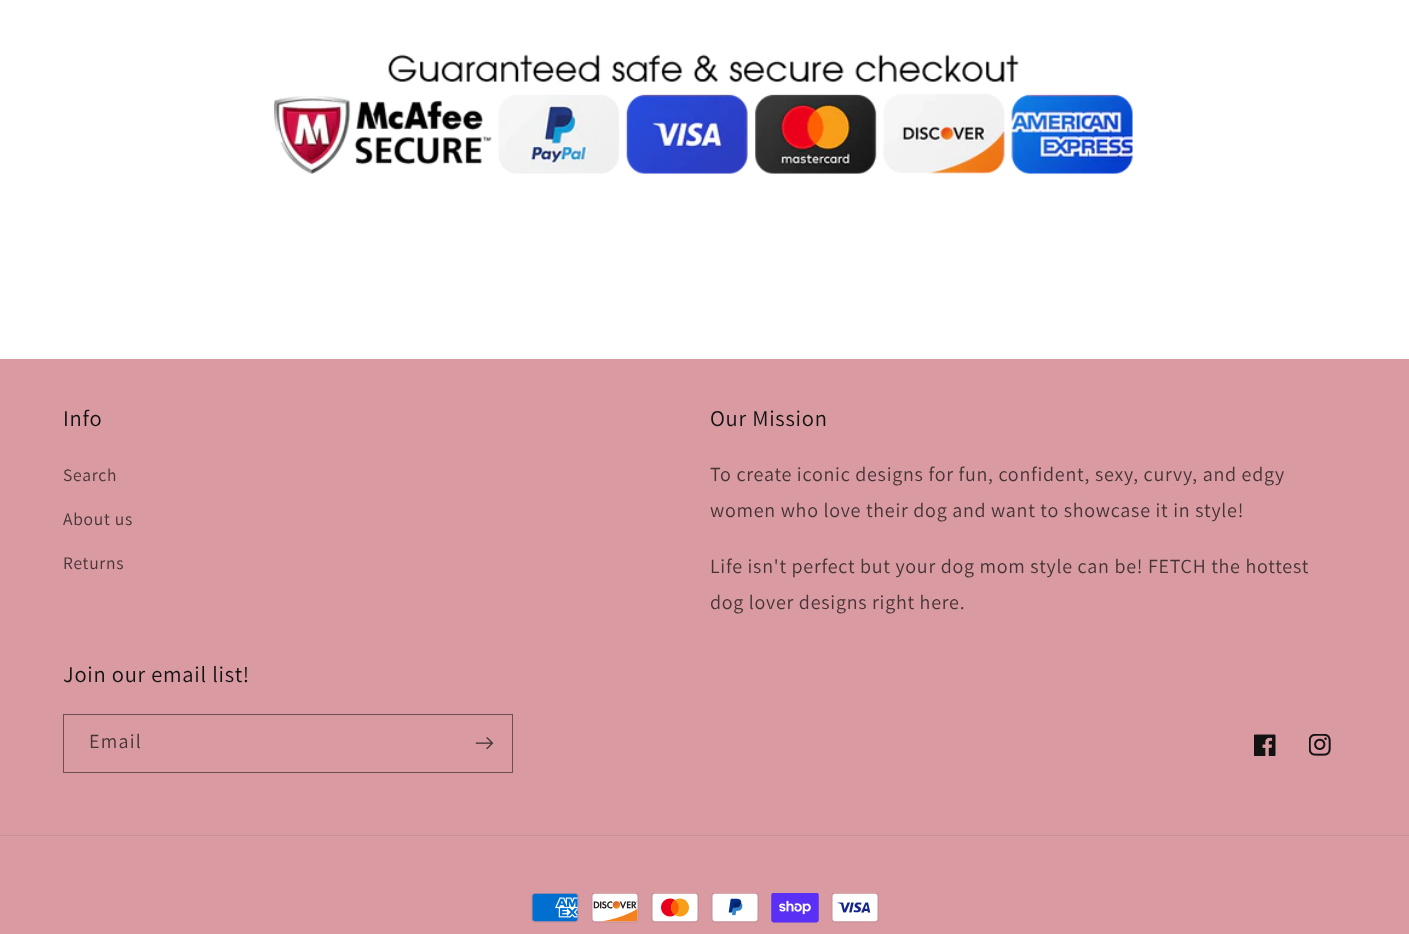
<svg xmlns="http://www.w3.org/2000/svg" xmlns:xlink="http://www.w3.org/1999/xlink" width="1409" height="934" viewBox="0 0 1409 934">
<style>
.cls-1{font:22.5px Assistant;letter-spacing:0.75px;fill:#121212}
.cls-2{font:17.5px Assistant;letter-spacing:0.75px;fill:#443436}
.cls-3{font:20px Assistant;letter-spacing:0.75px;fill:#443436}
.cls-4{font:20px Assistant;letter-spacing:1.25px;fill:#443436}
</style>
<rect width="100%" height="100%" fill="#ffffff"/>
<image xlink:href="image0.png" x="273" y="54" width="860" height="120"/>
<rect fill="#d99aa2" x="0" y="359" width="1409" height="575"/>
<rect fill="none" stroke="#6c4f53" x="63.5" y="714.5" width="449" height="58"/>
<image xlink:href="image1.png" x="475" y="737" width="18" height="13"/>
<image xlink:href="image2.png" x="1254" y="734" width="22" height="22"/>
<image xlink:href="image3.png" x="1309" y="734" width="22" height="22"/>
<rect fill="#c98f96" x="0" y="835" width="1409" height="1"/>
<image xlink:href="image4.png" x="531" y="893" width="48" height="30"/>
<image xlink:href="image5.png" x="591" y="893" width="48" height="30"/>
<image xlink:href="image6.png" x="651" y="893" width="48" height="30"/>
<image xlink:href="image7.png" x="711" y="893" width="48" height="30"/>
<image xlink:href="image8.png" x="771" y="893" width="48" height="30"/>
<image xlink:href="image9.png" x="831" y="893" width="48" height="30"/>
<text class="cls-1" x="63" y="426">Info</text>
<text class="cls-2" x="63" y="481">Search</text>
<text class="cls-2" x="63" y="525">About us</text>
<text class="cls-2" x="63" y="569">Returns</text>
<text class="cls-1" x="710" y="426">Our Mission</text>
<text class="cls-3"><tspan x="710" y="481">To create iconic designs for fun, confident, sexy, curvy, and edgy</tspan><tspan x="710" y="517">women who love their dog and want to showcase it in style!</tspan></text>
<text class="cls-3"><tspan x="710" y="573">Life isn't perfect but your dog mom style can be! FETCH the hottest</tspan><tspan x="710" y="609">dog lover designs right here.</tspan></text>
<text class="cls-1" x="63" y="682">Join our email list!</text>
<text class="cls-4" x="89" y="748">Email</text>
</svg>
